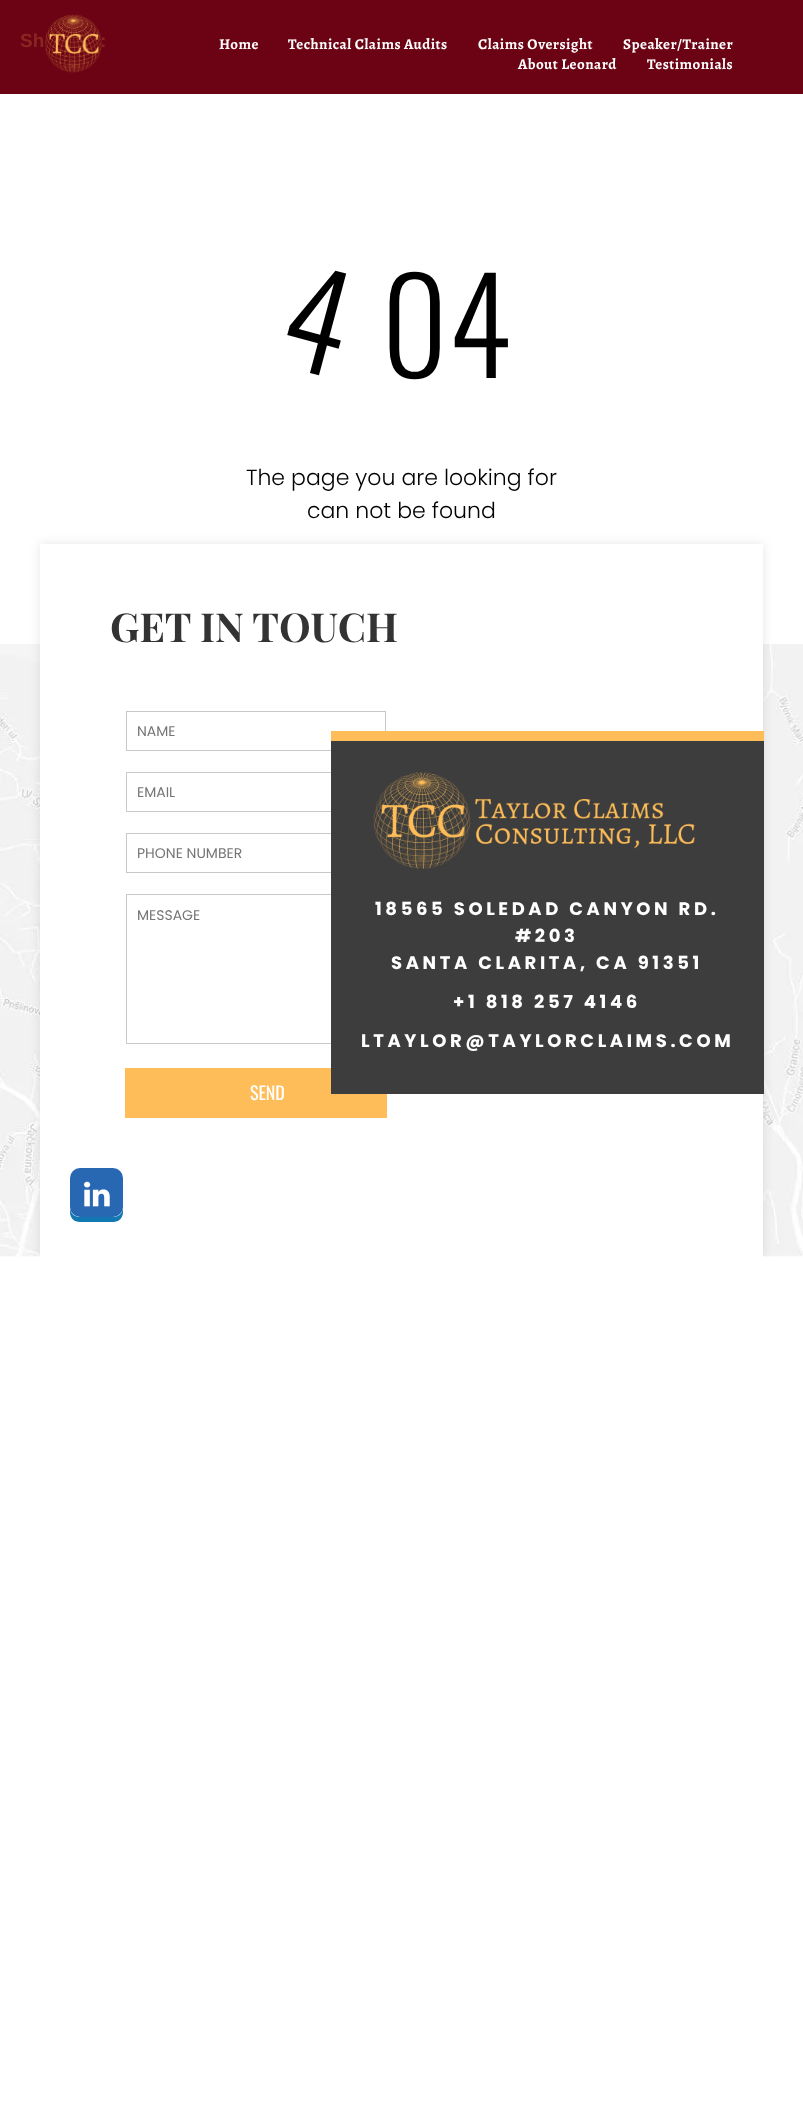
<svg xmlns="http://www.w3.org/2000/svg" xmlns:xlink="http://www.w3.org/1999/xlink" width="803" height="2119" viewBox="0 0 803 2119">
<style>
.cls-1{font:bold 19px Liberation Sans;fill:#882621}
.cls-2{font:bold 15px Alegreya;letter-spacing:0.45px;fill:#ffffff}
.cls-3{font:300 130px Oswald;fill:#000000}
.cls-4{font:300 22px Poppins;fill:#000000}
.cls-5{font:bold 40px Playfair Display;fill:#333333}
.cls-6{font:14px Poppins;fill:#757575}
.cls-7{font:18px Oswald;fill:#ffffff}
.cls-8{font:bold 18px Poppins;letter-spacing:3.6px;fill:#ffffff}
</style>
<defs>
<clipPath id="clip1"><rect x="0" y="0" width="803" height="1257"/></clipPath>
</defs>
<rect width="100%" height="100%" fill="#ffffff"/>
<rect fill="#6c0314" x="0" y="0" width="803" height="94"/>
<image xlink:href="image0.png" x="44" y="14" width="58" height="59"/>
<image xlink:href="image1.png" x="0" y="644" width="803" height="613"/>
<g clip-path="url(#clip1)">
<rect fill="#000000" fill-opacity="0.1" filter="blur(5.5px)" x="40" y="544" width="723" height="713"/>
</g>
<rect fill="#ffffff" x="40" y="544" width="723" height="713"/>
<rect fill="none" stroke="#c9c9c9" x="126.5" y="711.5" width="259" height="39"/>
<rect fill="none" stroke="#c9c9c9" x="126.5" y="772.5" width="259" height="39"/>
<rect fill="none" stroke="#c9c9c9" x="126.5" y="833.5" width="259" height="39"/>
<rect fill="none" stroke="#c9c9c9" x="126.5" y="894.5" width="259" height="149"/>
<rect fill="#ffbd59" x="125" y="1068" width="262" height="50"/>
<rect fill="#3d3d3d" x="331" y="741" width="433" height="353"/>
<rect fill="#ffbd59" x="331" y="731" width="433" height="10"/>
<image xlink:href="image2.png" x="373" y="772" width="322" height="97"/>
<path fill="#1278b1" d="M70 1207V1212C70 1218 74 1222 80 1222H113C119 1222 123 1218 123 1212V1207C123 1213 119 1217 113 1217H80C74 1217 70 1213 70 1207Z"/>
<rect fill="#2867b2" x="70" y="1168" width="53" height="49" rx="10"/>
<image xlink:href="image3.png" x="84" y="1181" width="26" height="26"/>
<text class="cls-1" x="20" y="47">Sh</text>
<text class="cls-1" x="100" y="47">:</text>
<text class="cls-2" x="219" y="49">Home</text>
<text class="cls-2" x="288" y="49">Technical Claims Audits</text>
<text class="cls-2" x="478" y="49">Claims Oversight</text>
<text class="cls-2" x="623" y="49">Speaker/Trainer</text>
<text class="cls-2" x="518" y="69">About Leonard</text>
<text class="cls-2" x="647" y="69">Testimonials</text>
<text class="cls-3" x="273" y="363" transform="rotate(15 273 363)">4</text>
<text class="cls-3" x="381" y="378">04</text>
<text class="cls-4" x="246" y="485">The page you are looking for</text>
<text class="cls-4" x="307" y="518">can not be found</text>
<text class="cls-5" x="110" y="642">GET IN TOUCH</text>
<text class="cls-6" x="137" y="736">NAME</text>
<text class="cls-6" x="137" y="797">EMAIL</text>
<text class="cls-6" x="137" y="858">PHONE NUMBER</text>
<text class="cls-6" x="137" y="920">MESSAGE</text>
<text class="cls-7" x="250" y="1100">SEND</text>
<text class="cls-8" x="375" y="915">18565 SOLEDAD CANYON RD.</text>
<text class="cls-8" x="515" y="942">#203</text>
<text class="cls-8" x="391" y="969">SANTA CLARITA, CA 91351</text>
<text class="cls-8" x="453" y="1008">+1 818 257 4146</text>
<text class="cls-8" x="361" y="1047">LTAYLOR@TAYLORCLAIMS.COM</text>
</svg>
